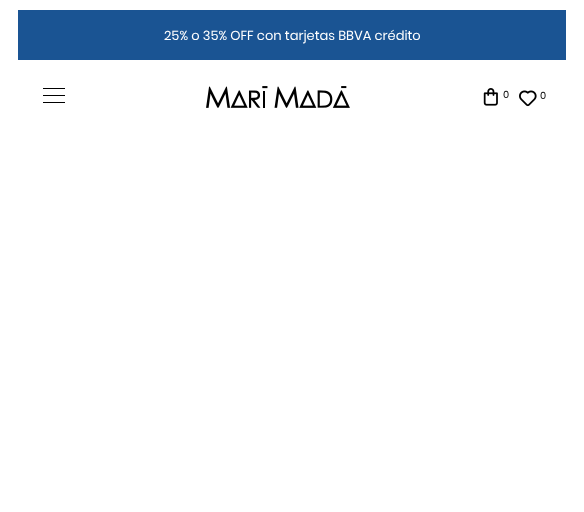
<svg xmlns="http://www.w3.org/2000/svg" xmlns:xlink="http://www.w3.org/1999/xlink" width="584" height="512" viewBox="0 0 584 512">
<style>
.cls-1{font:13px Poppins;fill:#ffffff}
.cls-2{font:10px Poppins;fill:#000000}
</style>
<rect width="100%" height="100%" fill="#ffffff"/>
<rect fill="#000000" x="43" y="88" width="22" height="1"/>
<rect fill="#000000" x="43" y="95" width="22" height="1"/>
<rect fill="#000000" x="43" y="102" width="22" height="1"/>
<rect fill="#1a5493" x="18" y="10" width="548" height="50"/>
<image xlink:href="image0.png" x="206" y="86" width="144" height="22"/>
<image xlink:href="image1.png" x="483" y="88" width="15" height="18"/>
<image xlink:href="image2.png" x="519" y="90" width="18" height="17"/>
<text class="cls-1" x="164" y="40">25% o 35% OFF con tarjetas BBVA crédito</text>
<text class="cls-2" x="503" y="98">0</text>
<text class="cls-2" x="540" y="99">0</text>
</svg>
